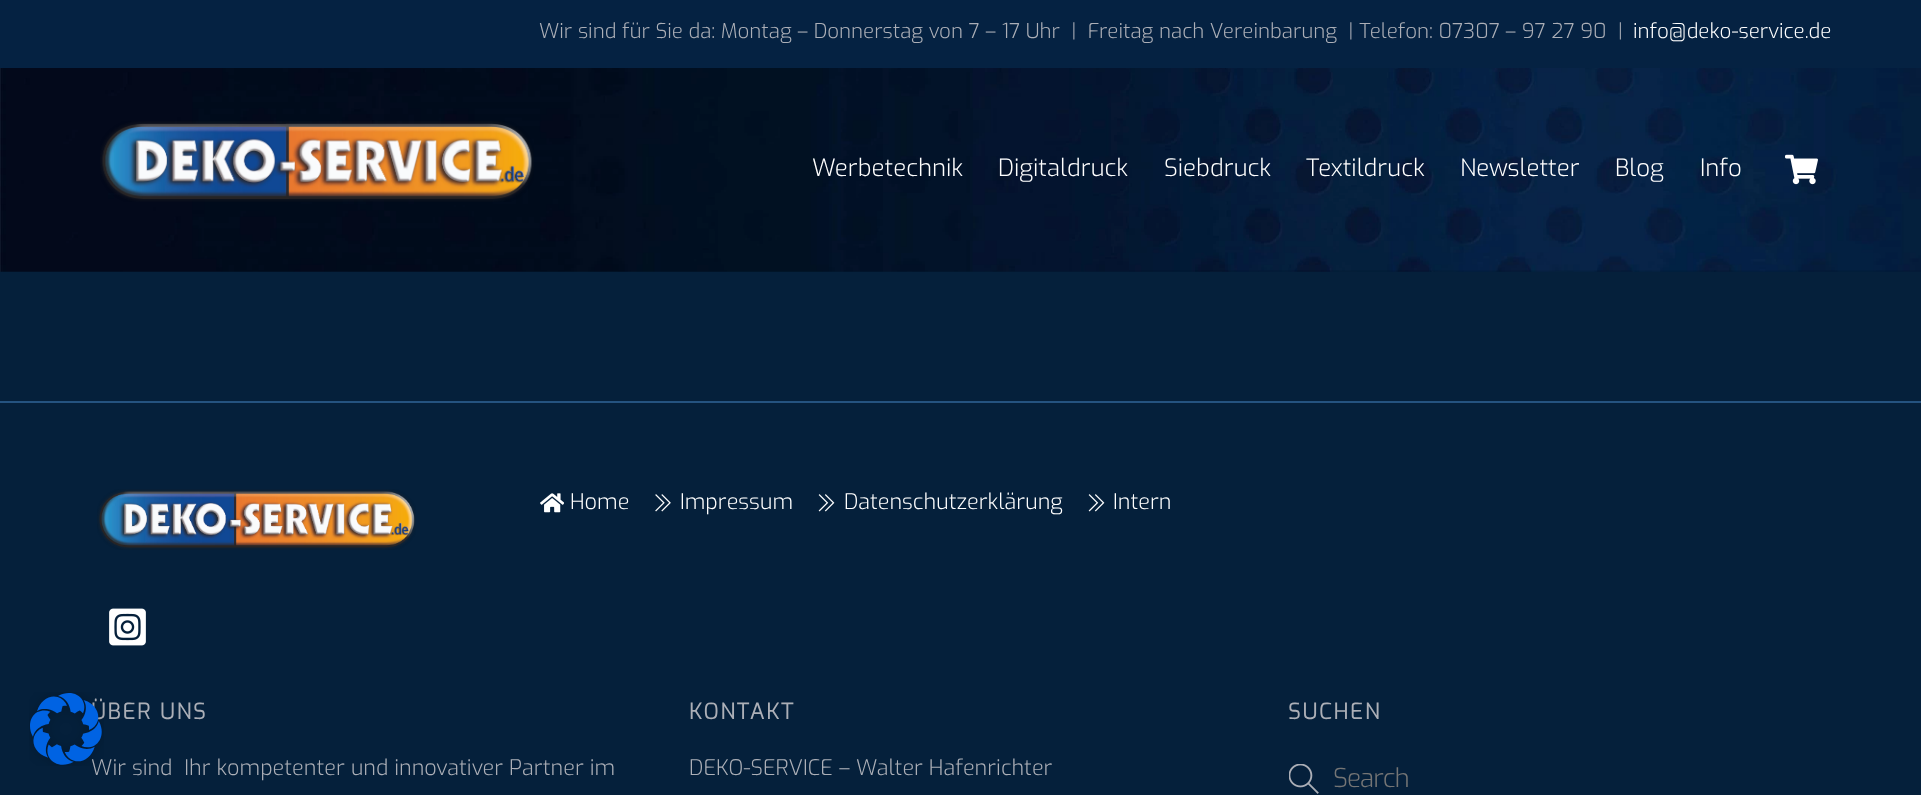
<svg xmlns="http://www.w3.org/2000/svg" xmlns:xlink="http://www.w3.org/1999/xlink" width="1921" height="795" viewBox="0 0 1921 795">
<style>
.cls-1{font:300 20.52px Exo;fill:#acafb7}
.cls-2{font:300 20.52px Exo;fill:#ffffff}
.cls-3{font:300 24px Exo;fill:#ffffff}
.cls-4{font:300 21.6px Exo;fill:#ffffff}
.cls-5{font:bold 21.6px Exo;letter-spacing:2px;fill:#acafb7}
.cls-6{font:300 21.6px Exo;fill:#acafb7}
.cls-7{font:300 26px Exo;letter-spacing:-1px;fill:#757575}
</style>
<rect width="100%" height="100%" fill="#05203b"/>
<image xlink:href="image1.png" x="0" y="68" width="1921" height="204"/>
<rect fill="#000000" fill-opacity="0.05" x="1129" y="270" width="792" height="2"/>
<rect fill="#052242" x="0" y="0" width="1921" height="68"/>
<image xlink:href="image2.png" x="100" y="121" width="434" height="81"/>
<image xlink:href="image3.png" x="1785" y="154" width="33" height="31"/>
<rect fill="#255380" x="0" y="401" width="1921" height="2"/>
<image xlink:href="image4.png" x="97" y="489" width="319" height="61"/>
<image xlink:href="image5.png" x="109" y="608" width="37" height="38"/>
<image xlink:href="image6.png" x="540" y="493" width="24" height="20"/>
<image xlink:href="image7.png" x="655" y="494" width="16" height="18"/>
<image xlink:href="image8.png" x="818" y="494" width="17" height="18"/>
<image xlink:href="image8.png" x="1088" y="494" width="17" height="18"/>
<image xlink:href="image9.png" x="1289" y="764" width="30" height="30"/>
<text class="cls-1" xml:space="preserve" x="539" y="38">Wir sind für Sie da: Montag – Donnerstag von 7 – 17 Uhr  |  Freitag nach Vereinbarung  | Telefon: 07307 – 97 27 90  |</text>
<text class="cls-2" x="1633" y="38">info@deko-service.de</text>
<text class="cls-3" x="812" y="176">Werbetechnik</text>
<text class="cls-3" x="998" y="176">Digitaldruck</text>
<text class="cls-3" x="1164" y="176">Siebdruck</text>
<text class="cls-3" x="1306" y="176">Textildruck</text>
<text class="cls-3" x="1460" y="176">Newsletter</text>
<text class="cls-3" x="1615" y="176">Blog</text>
<text class="cls-3" x="1700" y="176">Info</text>
<text class="cls-4" x="570" y="509">Home</text>
<text class="cls-4" x="680" y="509">Impressum</text>
<text class="cls-4" x="844" y="509">Datenschutzerklärung</text>
<text class="cls-4" x="1113" y="509">Intern</text>
<text class="cls-5" x="91" y="719">ÜBER UNS</text>
<text class="cls-6" xml:space="preserve" x="91" y="775">Wir sind  Ihr kompetenter und innovativer Partner im</text>
<image xlink:href="image0.png" x="29" y="692" width="75" height="74"/>
<text class="cls-5" x="689" y="719">KONTAKT</text>
<text class="cls-6" x="689" y="775">DEKO-SERVICE – Walter Hafenrichter</text>
<text class="cls-5" x="1288" y="719">SUCHEN</text>
<text class="cls-7" x="1333" y="787">Search</text>
</svg>
